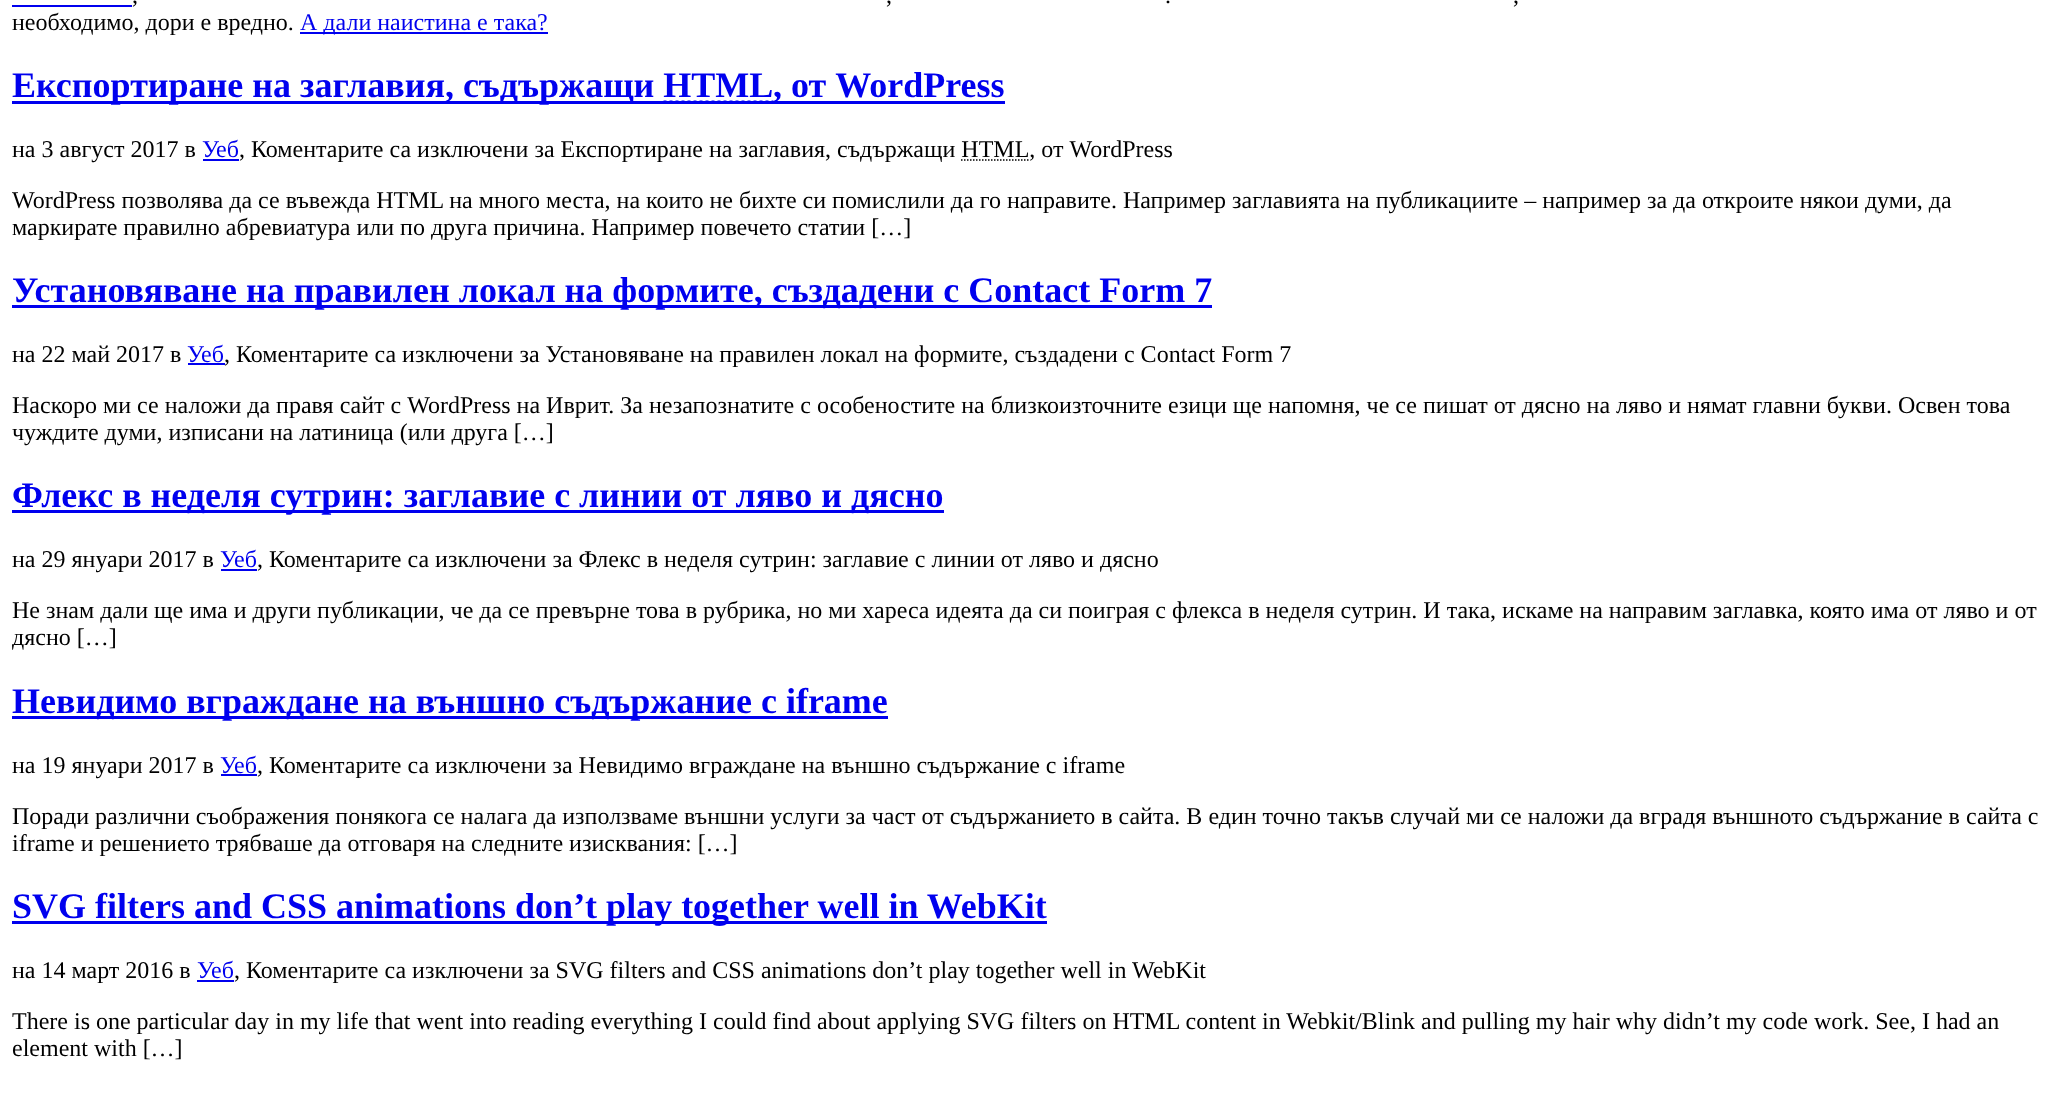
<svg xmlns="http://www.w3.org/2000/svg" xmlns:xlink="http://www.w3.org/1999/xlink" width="2066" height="1094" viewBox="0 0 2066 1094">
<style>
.cls-1{font:24px Liberation Serif;fill:#000000}
.cls-2{font:24px Liberation Serif;fill:#0000ee}
.cls-3{font:bold 36px Liberation Serif;fill:#0000ee}
</style>
<rect width="100%" height="100%" fill="#ffffff"/>
<rect fill="#0000ee" x="12" y="5" width="120" height="2"/>
<rect fill="#0000ee" x="300" y="32" width="248" height="2"/>
<rect fill="#0000ee" x="12" y="101" width="651" height="3"/>
<path fill="none" stroke="#0000ee" stroke-width="3" stroke-dasharray="3 3" d="M663.5 102H773.5"/>
<rect fill="#0000ee" x="663" y="101" width="342" height="3"/>
<rect fill="#0000ee" x="203" y="159" width="36" height="2"/>
<path fill="none" stroke="#000000" stroke-width="1.5" stroke-dasharray="1.5 1.5" d="M961 160H1029"/>
<rect fill="#0000ee" x="12" y="305" width="1200" height="3"/>
<rect fill="#0000ee" x="188" y="363" width="37" height="2"/>
<rect fill="#0000ee" x="12" y="510" width="932" height="3"/>
<rect fill="#0000ee" x="221" y="569" width="36" height="2"/>
<rect fill="#0000ee" x="12" y="716" width="876" height="3"/>
<rect fill="#0000ee" x="221" y="774" width="36" height="2"/>
<rect fill="#0000ee" x="12" y="921" width="1035" height="3"/>
<rect fill="#0000ee" x="197" y="980" width="37" height="2"/>
<text class="cls-1" x="132" y="3">,</text>
<text class="cls-1" x="886" y="3">,</text>
<text class="cls-1" x="1165" y="3">.</text>
<text class="cls-1" x="1513" y="3">,</text>
<text class="cls-1" x="12" y="30">необходимо, дори е вредно.</text>
<text class="cls-2" x="300" y="30">А дали наистина е така?</text>
<text class="cls-3" x="12" y="97">Експортиране на заглавия, съдържащи HTML</text>
<text class="cls-3" x="773" y="97">, от WordPress</text>
<text class="cls-1" x="12" y="157">на 3 август 2017 в</text>
<text class="cls-2" x="202" y="157">Уеб</text>
<text class="cls-1" x="239" y="157">, Коментарите са изключени за Експортиране на заглавия, съдържащи HTML, от WordPress</text>
<text class="cls-1"><tspan x="12" y="208">WordPress позволява да се въвежда HTML на много места, на които не бихте си помислили да го направите. Например заглавията на публикациите – например за да откроите някои думи, да</tspan><tspan x="12" y="235">маркирате правилно абревиатура или по друга причина. Например повечето статии […]</tspan></text>
<text class="cls-3" x="12" y="302">Установяване на правилен локал на формите, създадени с Contact Form 7</text>
<text class="cls-1" x="12" y="362">на 22 май 2017 в</text>
<text class="cls-2" x="187" y="362">Уеб</text>
<text class="cls-1" x="224" y="362">, Коментарите са изключени за Установяване на правилен локал на формите, създадени с Contact Form 7</text>
<text class="cls-1"><tspan x="12" y="413">Наскоро ми се наложи да правя сайт с WordPress на Иврит. За незапознатите с особеностите на близкоизточните езици ще напомня, че се пишат от дясно на ляво и нямат главни букви. Освен това</tspan><tspan x="12" y="440">чуждите думи, изписани на латиница (или друга […]</tspan></text>
<text class="cls-3" x="12" y="507">Флекс в неделя сутрин: заглавие с линии от ляво и дясно</text>
<text class="cls-1" x="12" y="567">на 29 януари 2017 в</text>
<text class="cls-2" x="220" y="567">Уеб</text>
<text class="cls-1" x="257" y="567">, Коментарите са изключени за Флекс в неделя сутрин: заглавие с линии от ляво и дясно</text>
<text class="cls-1"><tspan x="12" y="618">Не знам дали ще има и други публикации, че да се превърне това в рубрика, но ми хареса идеята да си поиграя с флекса в неделя сутрин. И така, искаме на направим заглавка, която има от ляво и от</tspan><tspan x="12" y="645">дясно […]</tspan></text>
<text class="cls-3" x="12" y="713">Невидимо вграждане на външно съдържание с iframe</text>
<text class="cls-1" x="12" y="773">на 19 януари 2017 в</text>
<text class="cls-2" x="220" y="773">Уеб</text>
<text class="cls-1" x="257" y="773">, Коментарите са изключени за Невидимо вграждане на външно съдържание с iframe</text>
<text class="cls-1"><tspan x="12" y="824">Поради различни съображения понякога се налага да използваме външни услуги за част от съдържанието в сайта. В един точно такъв случай ми се наложи да вградя външното съдържание в сайта с</tspan><tspan x="12" y="851">iframe и решението трябваше да отговаря на следните изисквания: […]</tspan></text>
<text class="cls-3" x="12" y="918">SVG filters and CSS animations don’t play together well in WebKit</text>
<text class="cls-1" x="12" y="978">на 14 март 2016 в</text>
<text class="cls-2" x="197" y="978">Уеб</text>
<text class="cls-1" x="234" y="978">, Коментарите са изключени за SVG filters and CSS animations don’t play together well in WebKit</text>
<text class="cls-1"><tspan x="12" y="1029">There is one particular day in my life that went into reading everything I could find about applying SVG filters on HTML content in Webkit/Blink and pulling my hair why didn’t my code work. See, I had an</tspan><tspan x="12" y="1056">element with […]</tspan></text>
</svg>
